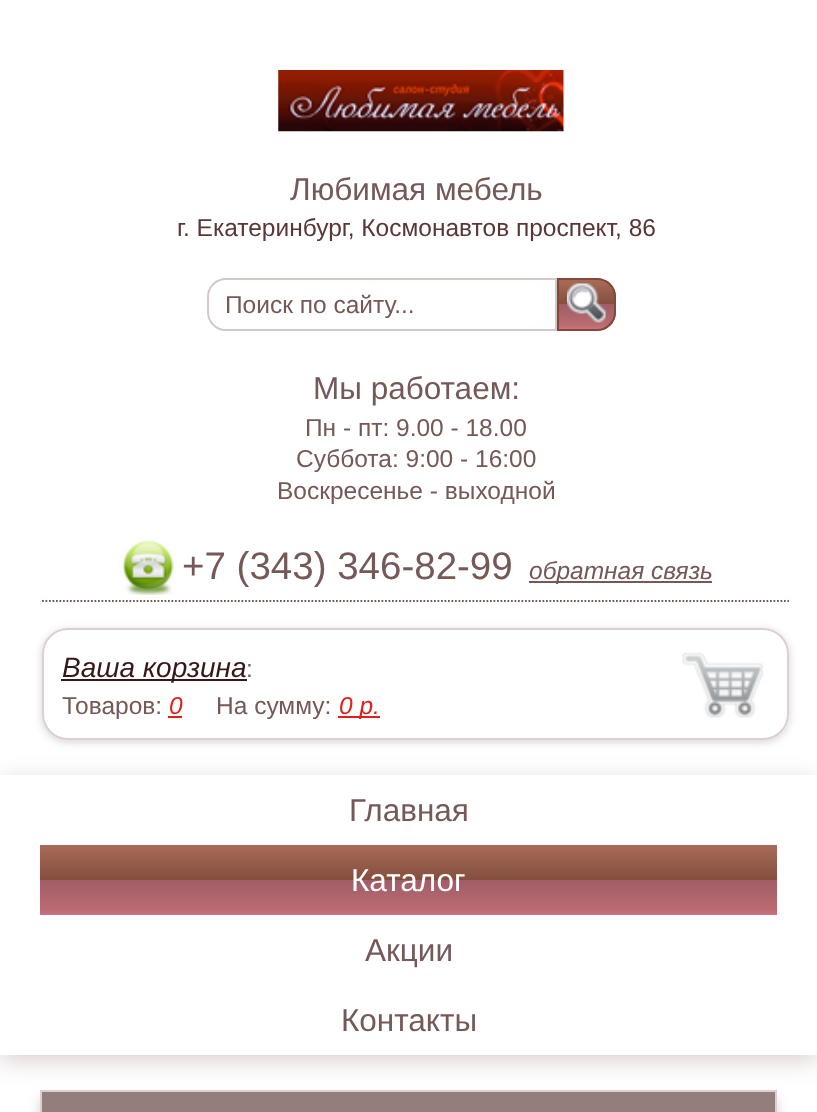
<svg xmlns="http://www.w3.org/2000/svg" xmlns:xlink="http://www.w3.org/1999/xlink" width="817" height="1112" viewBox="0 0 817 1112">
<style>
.cls-1{font:31.5px Liberation Sans;fill:#745957}
.cls-2{font:24.5px Liberation Sans;fill:#5a3737}
.cls-3{font:24.5px Liberation Sans;fill:#745957}
.cls-4{font:38.5px Liberation Sans;fill:#745957}
.cls-5{font:italic 24.5px Liberation Sans;fill:#745957}
.cls-6{font:italic 28px Liberation Sans;fill:#361819}
.cls-7{font:italic 24.5px Liberation Sans;fill:#df2019}
.cls-8{font:31.5px Liberation Sans;fill:#ffffff}
</style>
<defs>
<clipPath id="clip1"><path d="M557 278H597C607.5 278 616 286.5 616 297V312C616 322.5 607.5 331 597 331H557Z"/></clipPath>
<linearGradient id="g1" gradientUnits="userSpaceOnUse" x1="586" y1="280" x2="586" y2="329"><stop offset="0.04" stop-color="#a66954"/><stop offset="0.5" stop-color="#844e3e"/><stop offset="0.5" stop-color="#a05d68"/><stop offset="0.92" stop-color="#ba6b70"/><stop offset="1" stop-color="#cb7282"/></linearGradient>
<clipPath id="clip2"><path d="M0 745H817V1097H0ZM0 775H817V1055H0Z" clip-rule="evenodd"/></clipPath>
<linearGradient id="g2" gradientUnits="userSpaceOnUse" x1="409" y1="845" x2="409" y2="915"><stop offset="0.04" stop-color="#a66954"/><stop offset="0.5" stop-color="#844e3e"/><stop offset="0.5" stop-color="#a05d68"/><stop offset="0.92" stop-color="#ba6b70"/><stop offset="1" stop-color="#cb7282"/></linearGradient>
</defs>
<rect width="100%" height="100%" fill="#ffffff"/>
<image xlink:href="image0.png" x="278" y="70" width="286" height="62"/>
<path fill="none" stroke="#d3c9c7" stroke-width="2" d="M226 279H556V330H226C216 330 208 322 208 312V297C208 287 216 279 226 279Z"/>
<g clip-path="url(#clip1)">
<rect fill="url(#g1)" x="559" y="280" width="57" height="49"/>
</g>
<path fill="none" stroke="#834837" stroke-width="2" d="M558 279H597C607 279 615 287 615 297V312C615 322 607 330 597 330H558Z"/>
<image xlink:href="image1.png" x="567" y="283" width="39" height="40"/>
<path fill="none" stroke="#745957" stroke-width="1.8" stroke-dasharray="1.75 1.75" d="M42 601H789"/>
<image xlink:href="image2.png" x="119" y="540" width="55" height="55"/>
<rect fill="#745957" x="529" y="581" width="183" height="2"/>
<rect fill="#d3d3d3" filter="blur(4.5px)" x="42" y="630" width="747" height="112" rx="26"/>
<rect fill="#ffffff" x="42" y="628" width="747" height="112" rx="26"/>
<image xlink:href="image3.png" x="682" y="652" width="82" height="66"/>
<rect fill="none" stroke="#dbd0cf" stroke-width="2" x="43" y="629" width="745" height="110" rx="25"/>
<rect fill="#361819" x="61" y="679" width="186" height="2"/>
<rect fill="#df2019" x="168" y="716" width="14" height="2"/>
<rect fill="#df2019" x="338" y="716" width="42" height="2"/>
<g clip-path="url(#clip2)">
<rect fill="#dbd0cf" filter="blur(11.5px)" x="0" y="781" width="817" height="280"/>
</g>
<rect fill="url(#g2)" x="40" y="845" width="737" height="70"/>
<rect fill="#d3d3d3" filter="blur(6px)" x="40" y="1099" width="737" height="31"/>
<rect fill="#947e7d" stroke="#dbd0cf" stroke-width="2" x="41" y="1091" width="735" height="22"/>
<text class="cls-1" x="290" y="200">Любимая мебель</text>
<text class="cls-2" x="177" y="236">г. Екатеринбург, Космонавтов проспект, 86</text>
<text class="cls-3" x="225" y="313">Поиск по сайту...</text>
<text class="cls-1" x="313" y="399">Мы работаем:</text>
<text class="cls-3" x="305" y="436">Пн - пт: 9.00 - 18.00</text>
<text class="cls-3" x="296" y="467">Суббота: 9:00 - 16:00</text>
<text class="cls-3" x="277" y="499">Воскресенье - выходной</text>
<text class="cls-4" x="182" y="579">+7 (343) 346-82-99</text>
<text class="cls-5" x="529" y="579">обратная связь</text>
<text class="cls-6" x="62" y="677">Ваша корзина</text>
<text class="cls-3" x="246" y="677">:</text>
<text class="cls-3" x="62" y="714">Товаров:</text>
<text class="cls-7" x="169" y="714">0</text>
<text class="cls-3" x="216" y="714">На сумму:</text>
<text class="cls-7" x="339" y="714">0 р.</text>
<text class="cls-1" x="349" y="821">Главная</text>
<text class="cls-8" x="351" y="891">Каталог</text>
<text class="cls-1" x="365" y="961">Акции</text>
<text class="cls-1" x="341" y="1031">Контакты</text>
</svg>
